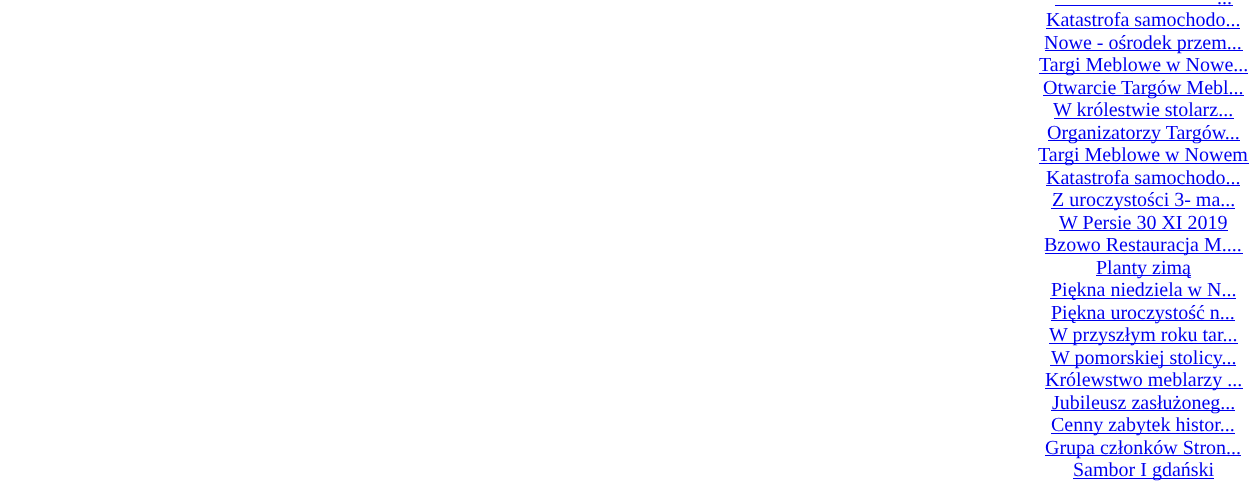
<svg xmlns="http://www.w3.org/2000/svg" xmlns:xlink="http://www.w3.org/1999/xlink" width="1260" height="490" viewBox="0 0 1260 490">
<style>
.cls-1{font:20px Liberation Serif;fill:#0000ee}
</style>
<rect width="100%" height="100%" fill="#ffffff"/>
<rect fill="#0000ee" x="1055" y="5" width="178" height="1"/>
<rect fill="#0000ee" x="1046" y="28" width="194" height="1"/>
<rect fill="#0000ee" x="1045" y="50" width="198" height="1"/>
<rect fill="#0000ee" x="1039" y="73" width="209" height="1"/>
<rect fill="#0000ee" x="1043" y="95" width="201" height="1"/>
<rect fill="#0000ee" x="1054" y="118" width="180" height="1"/>
<rect fill="#0000ee" x="1048" y="140" width="192" height="1"/>
<rect fill="#0000ee" x="1039" y="163" width="210" height="1"/>
<rect fill="#0000ee" x="1046" y="185" width="194" height="1"/>
<rect fill="#0000ee" x="1051" y="208" width="184" height="1"/>
<rect fill="#0000ee" x="1059" y="230" width="169" height="1"/>
<rect fill="#0000ee" x="1045" y="253" width="198" height="1"/>
<rect fill="#0000ee" x="1096" y="275" width="95" height="1"/>
<rect fill="#0000ee" x="1050" y="298" width="186" height="1"/>
<rect fill="#0000ee" x="1051" y="320" width="184" height="1"/>
<rect fill="#0000ee" x="1049" y="343" width="189" height="1"/>
<rect fill="#0000ee" x="1050" y="365" width="186" height="1"/>
<rect fill="#0000ee" x="1045" y="388" width="198" height="1"/>
<rect fill="#0000ee" x="1051" y="410" width="184" height="1"/>
<rect fill="#0000ee" x="1051" y="433" width="184" height="1"/>
<rect fill="#0000ee" x="1045" y="455" width="196" height="1"/>
<rect fill="#0000ee" x="1073" y="478" width="141" height="1"/>
<text class="cls-1" x="1217" y="4">...</text>
<text class="cls-1" x="1046" y="26">Katastrofa samochodo...</text>
<text class="cls-1" x="1044" y="49">Nowe - ośrodek przem...</text>
<text class="cls-1" x="1039" y="71">Targi Meblowe w Nowe...</text>
<text class="cls-1" x="1043" y="94">Otwarcie Targów Mebl...</text>
<text class="cls-1" x="1053" y="116">W królestwie stolarz...</text>
<text class="cls-1" x="1047" y="139">Organizatorzy Targów...</text>
<text class="cls-1" x="1038" y="161">Targi Meblowe w Nowem</text>
<text class="cls-1" x="1046" y="184">Katastrofa samochodo...</text>
<text class="cls-1" x="1052" y="206">Z uroczystości 3- ma...</text>
<text class="cls-1" x="1059" y="229">W Persie 30 XI 2019</text>
<text class="cls-1" x="1044" y="251">Bzowo Restauracja M....</text>
<text class="cls-1" x="1096" y="274">Planty zimą</text>
<text class="cls-1"><tspan x="1051" y="296">Piękna niedziela w N...</tspan><tspan x="1051" y="319">Piękna uroczystość n...</tspan></text>
<text class="cls-1" x="1049" y="341">W przyszłym roku tar...</text>
<text class="cls-1" x="1051" y="364">W pomorskiej stolicy...</text>
<text class="cls-1" x="1045" y="386">Królewstwo meblarzy ...</text>
<text class="cls-1" x="1052" y="409">Jubileusz zasłużoneg...</text>
<text class="cls-1" x="1051" y="431">Cenny zabytek histor...</text>
<text class="cls-1" x="1045" y="454">Grupa członków Stron...</text>
<text class="cls-1" x="1073" y="476">Sambor I gdański</text>
</svg>
